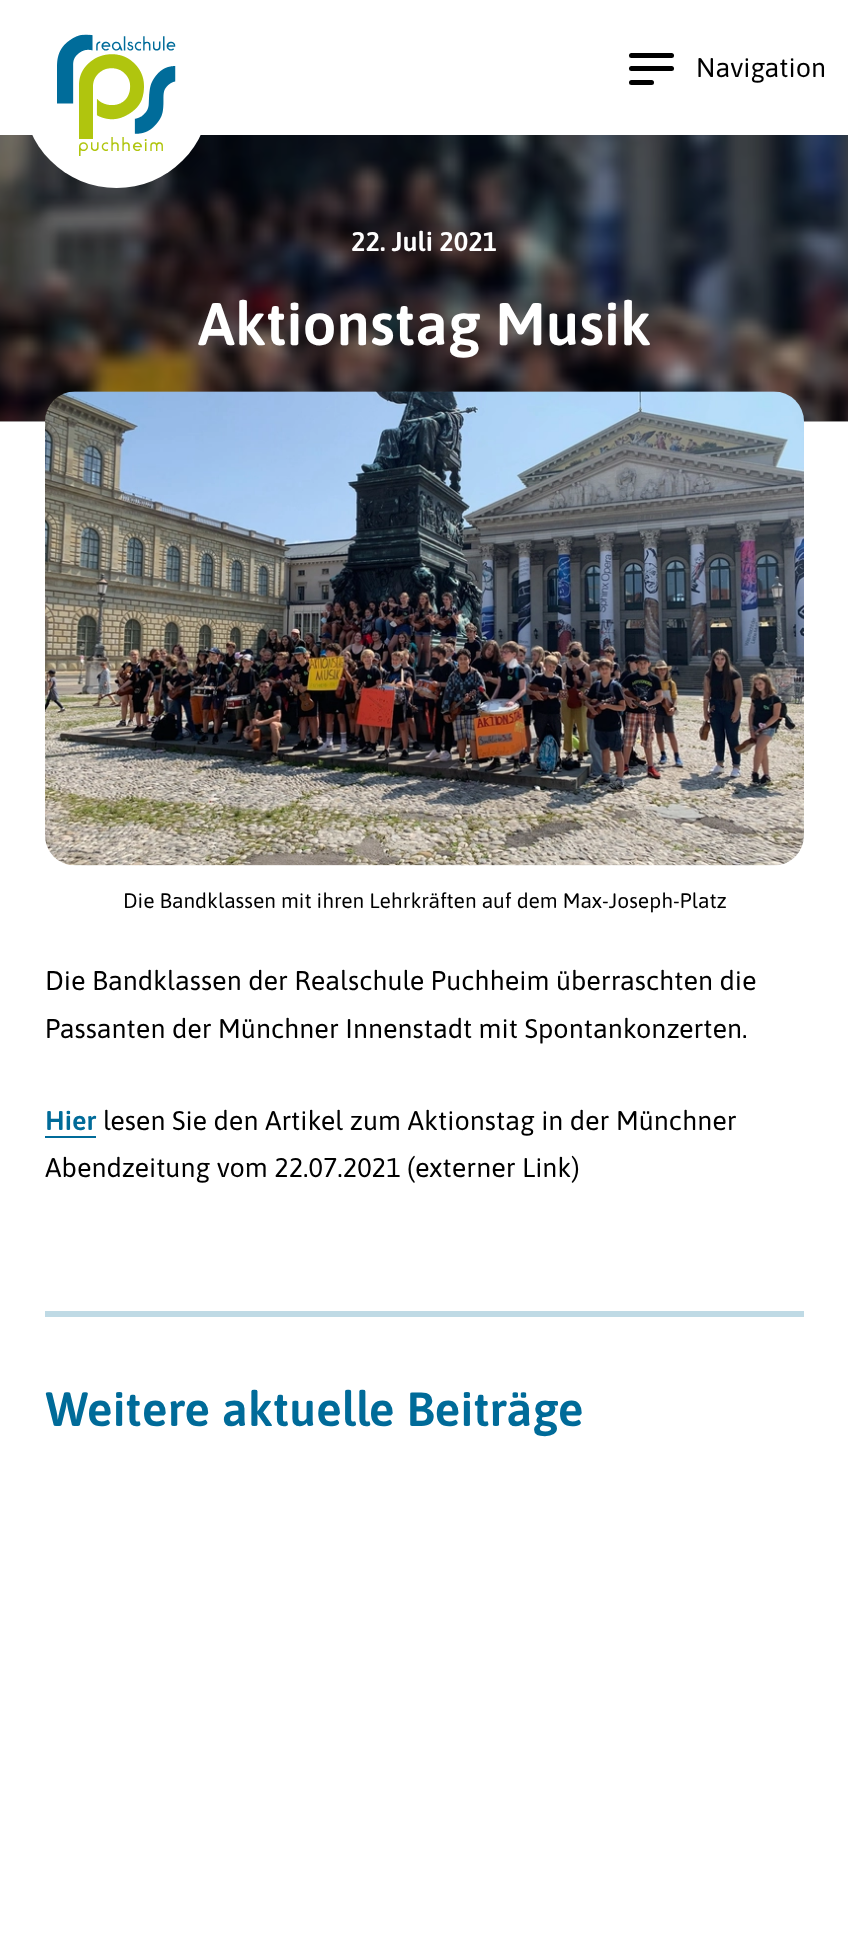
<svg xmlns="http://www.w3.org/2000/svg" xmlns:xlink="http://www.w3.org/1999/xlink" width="848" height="1950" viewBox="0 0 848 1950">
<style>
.cls-1{font:27px Asap;fill:#000000}
.cls-2{font:600 27px Asap;fill:#ffffff}
.cls-3{font:600 60px Asap;fill:#ffffff}
.cls-4{font:21px Asap;fill:#000000}
.cls-5{font:600 27px Asap;fill:#006b99}
.cls-6{font:600 48px Asap;fill:#006b99}
</style>
<rect width="100%" height="100%" fill="#ffffff"/>
<rect fill="#bfbfbf" x="0" y="421" width="848" height="1"/>
<image xlink:href="image1.png" x="0" y="135" width="848" height="287"/>
<rect fill="#ffffff" x="23" y="0" width="187" height="188" rx="93.5"/>
<image xlink:href="image0.png" x="57" y="34" width="119" height="122"/>
<rect fill="#000000" x="629" y="53" width="45" height="5" rx="2.5"/>
<rect fill="#000000" x="629" y="66" width="45" height="5" rx="2.5"/>
<rect fill="#000000" x="629" y="80" width="25" height="5" rx="2.5"/>
<image xlink:href="image2.png" x="45" y="391" width="759" height="475"/>
<rect fill="#006b99" x="45" y="1136" width="51" height="2"/>
<rect fill="#bfdae5" x="45" y="1311" width="759" height="6"/>
<text class="cls-1" x="696" y="77">Navigation</text>
<text class="cls-2" x="351" y="251">22. Juli 2021</text>
<text class="cls-3" x="198" y="345">Aktionstag Musik</text>
<text class="cls-4" x="123" y="908">Die Bandklassen mit ihren Lehrkräften auf dem Max-Joseph-Platz</text>
<text class="cls-1"><tspan x="45" y="990">Die Bandklassen der Realschule Puchheim überraschten die</tspan><tspan x="45" y="1038">Passanten der Münchner Innenstadt mit Spontankonzerten.</tspan></text>
<text class="cls-5" x="45" y="1130">Hier</text>
<text class="cls-1" x="103" y="1130">lesen Sie den Artikel zum Aktionstag in der Münchner</text>
<text class="cls-1" x="45" y="1177">Abendzeitung vom 22.07.2021 (externer Link)</text>
<text class="cls-6" x="45" y="1426">Weitere aktuelle Beiträge</text>
</svg>
